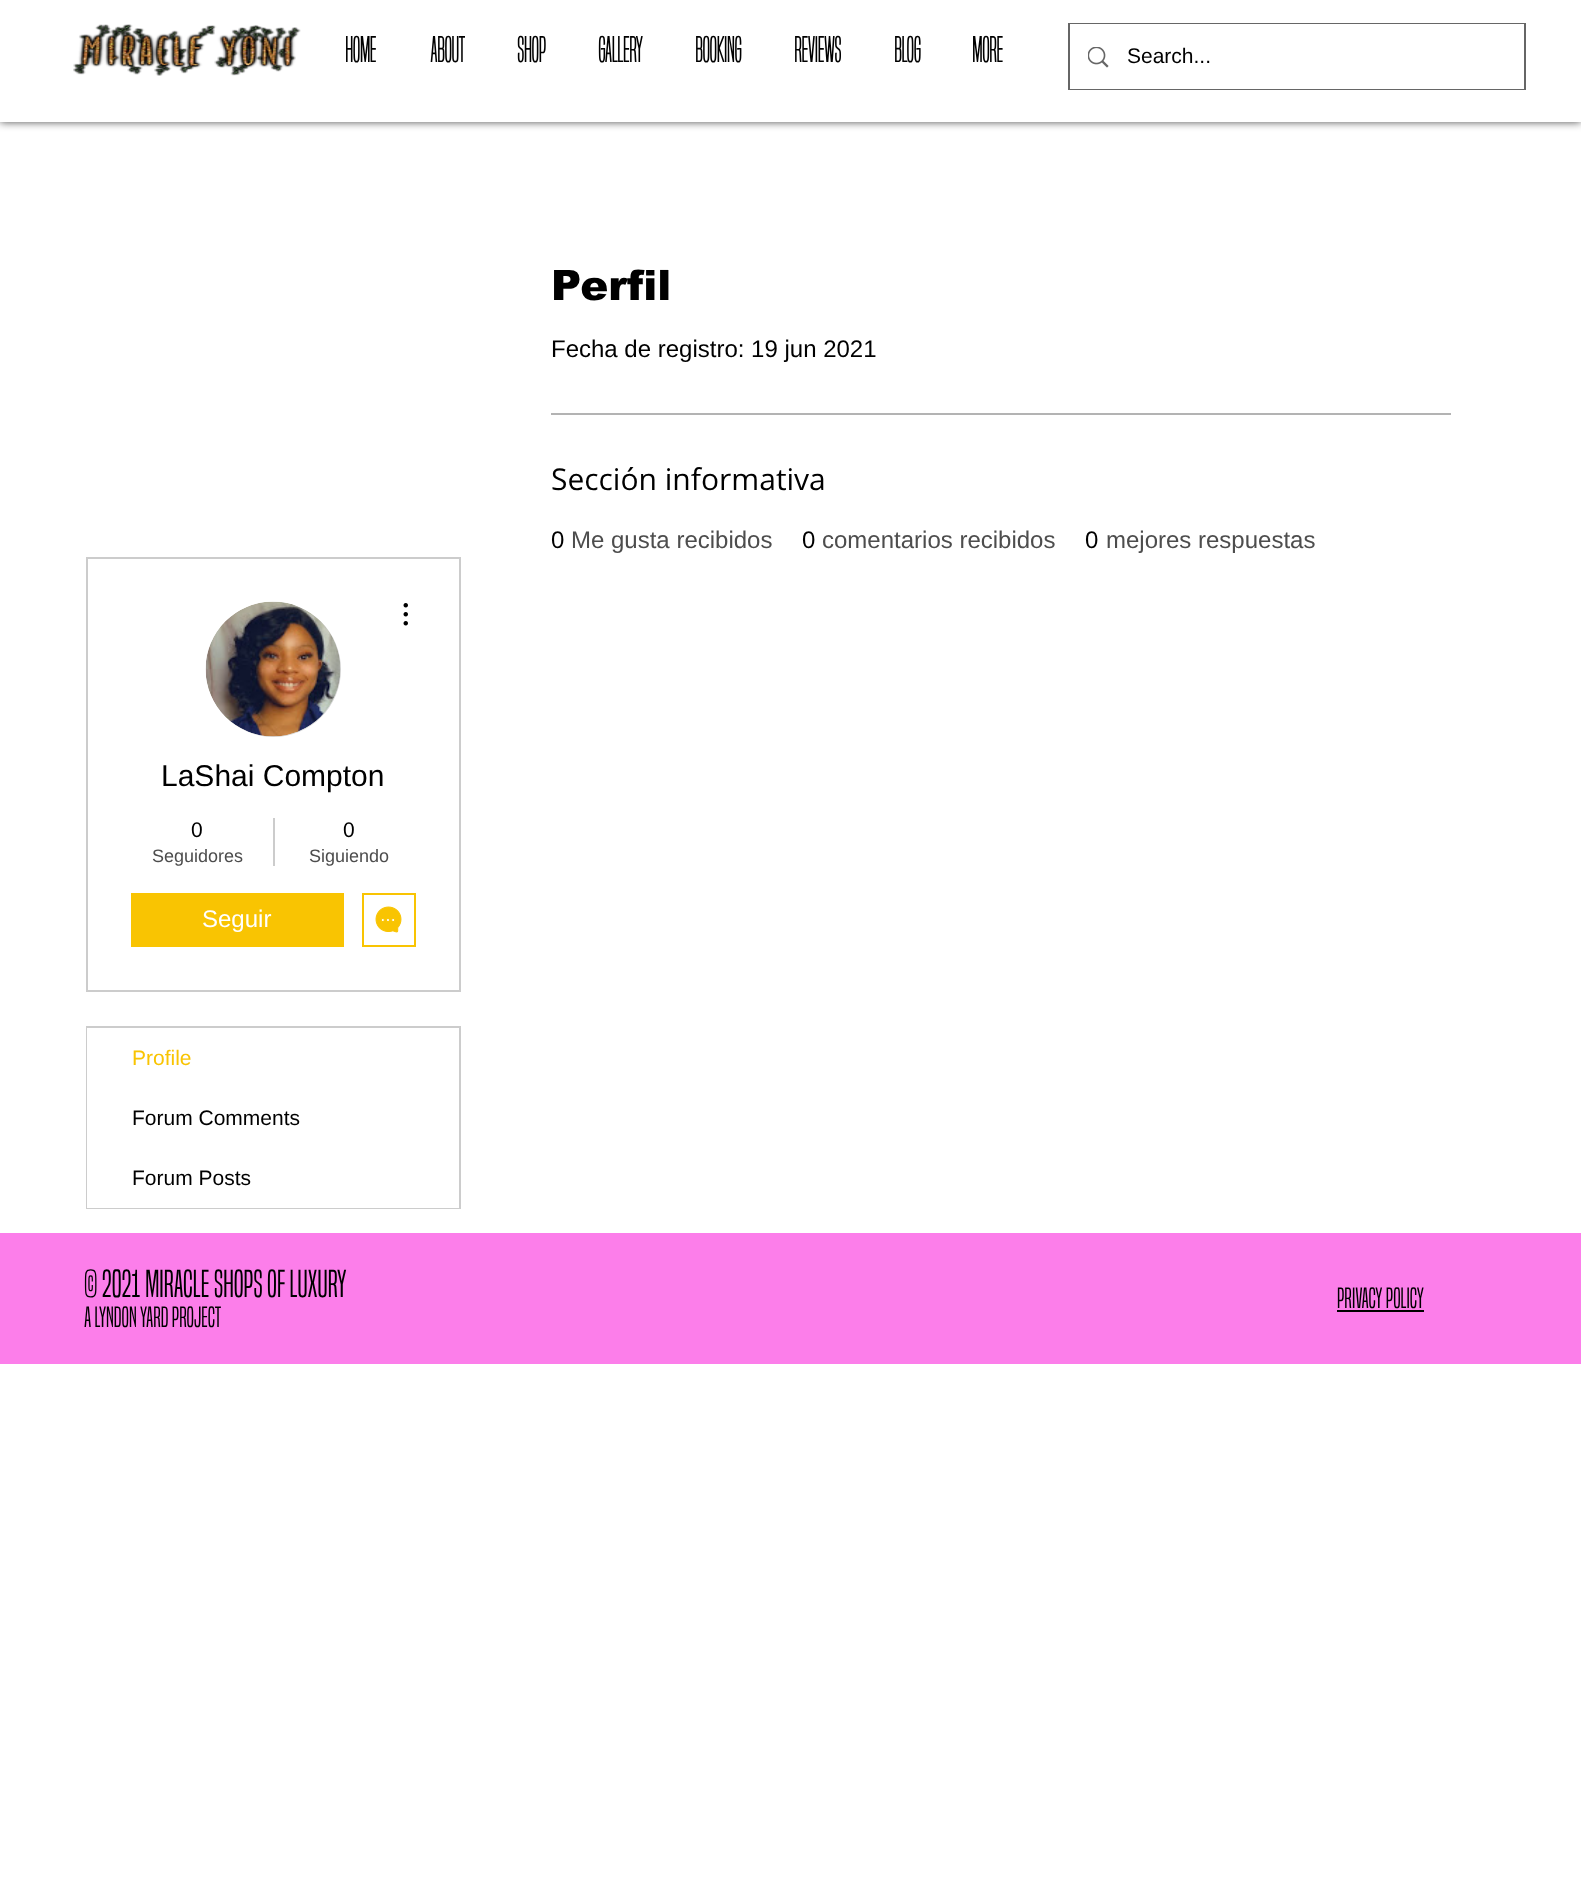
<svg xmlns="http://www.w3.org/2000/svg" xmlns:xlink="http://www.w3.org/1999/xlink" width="1581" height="1903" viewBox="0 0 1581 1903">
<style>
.cls-1{font:bold 33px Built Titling;fill:#000000}
.cls-2{font:21px Liberation Sans;fill:#000000}
.cls-3{font:900 42px arial;fill:#000000}
.cls-4{font:24px Liberation Sans;fill:#000000}
.cls-5{font:30px Open Sans;fill:#000000}
.cls-6{font:24px Liberation Sans;fill:#4d4d4d}
.cls-7{font:30px Liberation Sans;fill:#000000}
.cls-8{font:18px Liberation Sans;fill:#4d4d4d}
.cls-9{font:24px Liberation Sans;fill:#ffffff}
.cls-10{font:21px Liberation Sans;fill:#f9c402}
.cls-11{font:36px Built Titling;fill:#000000}
.cls-12{font:27px Built Titling;fill:#000000}
</style>
<rect width="100%" height="100%" fill="#ffffff"/>
<rect fill="#000000" fill-opacity="0.7" filter="blur(4px)" x="0" y="0" width="1581" height="122"/>
<rect fill="#ffffff" x="0" y="0" width="1581" height="122"/>
<image xlink:href="image0.png" x="73" y="24" width="228" height="52"/>
<rect fill="none" stroke="#666666" stroke-width="2" x="1069" y="24" width="456" height="65"/>
<rect fill="#ffffff" x="1070" y="24" width="454" height="65"/>
<image xlink:href="image1.png" x="1088" y="47" width="21" height="21"/>
<rect fill="#b3b3b3" x="551" y="413" width="900" height="2"/>
<rect fill="none" stroke="#cccccc" stroke-width="2" x="87" y="558" width="373" height="433"/>
<circle fill="#d8d8d8" cx="273.5" cy="669.5" r="67.5"/>
<image xlink:href="image2.png" x="205" y="601" width="136" height="136"/>
<image xlink:href="image3.png" x="403" y="603" width="5" height="23"/>
<rect fill="#cccccc" x="273" y="818" width="2" height="48"/>
<rect fill="#f9c402" x="131" y="893" width="213" height="54"/>
<rect fill="none" stroke="#f9c402" stroke-width="2" x="363" y="894" width="52" height="52"/>
<image xlink:href="image4.png" x="375" y="906" width="27" height="27"/>
<rect fill="none" stroke="#cccccc" stroke-width="2" x="87" y="1027" width="373" height="181"/>
<rect fill="#ffffff" x="87" y="1028" width="1" height="120"/>
<rect fill="#ffffff" x="87" y="1148" width="372" height="60"/>
<rect fill="#fc7eea" x="0" y="1233" width="1581" height="131"/>
<rect fill="#000000" x="1337" y="1310" width="87" height="2"/>
<text class="cls-1" x="345" y="62">HOME</text>
<text class="cls-1" x="430" y="62">ABOUT</text>
<text class="cls-1" x="517" y="62">SHOP</text>
<text class="cls-1" x="598" y="62">GALLERY</text>
<text class="cls-1" x="695" y="62">BOOKING</text>
<text class="cls-1" x="794" y="62">REVIEWS</text>
<text class="cls-1" x="894" y="62">Blog</text>
<text class="cls-1" x="972" y="62">More</text>
<text class="cls-2" x="1127" y="63">Search...</text>
<text class="cls-3" x="551" y="300">Perfil</text>
<text class="cls-4" x="551" y="357">Fecha de registro: 19 jun 2021</text>
<text class="cls-5" x="551" y="490">Sección informativa</text>
<text class="cls-4" x="551" y="548">0</text>
<text class="cls-6" x="571" y="548">Me gusta recibidos</text>
<text class="cls-4" x="802" y="548">0</text>
<text class="cls-6" x="822" y="548">comentarios recibidos</text>
<text class="cls-4" x="1085" y="548">0</text>
<text class="cls-6" x="1106" y="548">mejores respuestas</text>
<text class="cls-7" x="161" y="786">LaShai Compton</text>
<text class="cls-2" x="191" y="837">0</text>
<text class="cls-8" x="152" y="862">Seguidores</text>
<text class="cls-2" x="343" y="837">0</text>
<text class="cls-8" x="309" y="862">Siguiendo</text>
<text class="cls-9" x="202" y="927">Seguir</text>
<text class="cls-10" x="132" y="1065">Profile</text>
<text class="cls-2" x="132" y="1125">Forum Comments</text>
<text class="cls-2" x="132" y="1185">Forum Posts</text>
<text class="cls-11" x="84" y="1297">© 2021 miracle shops of luxury</text>
<text class="cls-12" x="1337" y="1308">privacy policy</text>
<text class="cls-12" x="84" y="1327">A LYNDON YARD PROJECT</text>
</svg>
